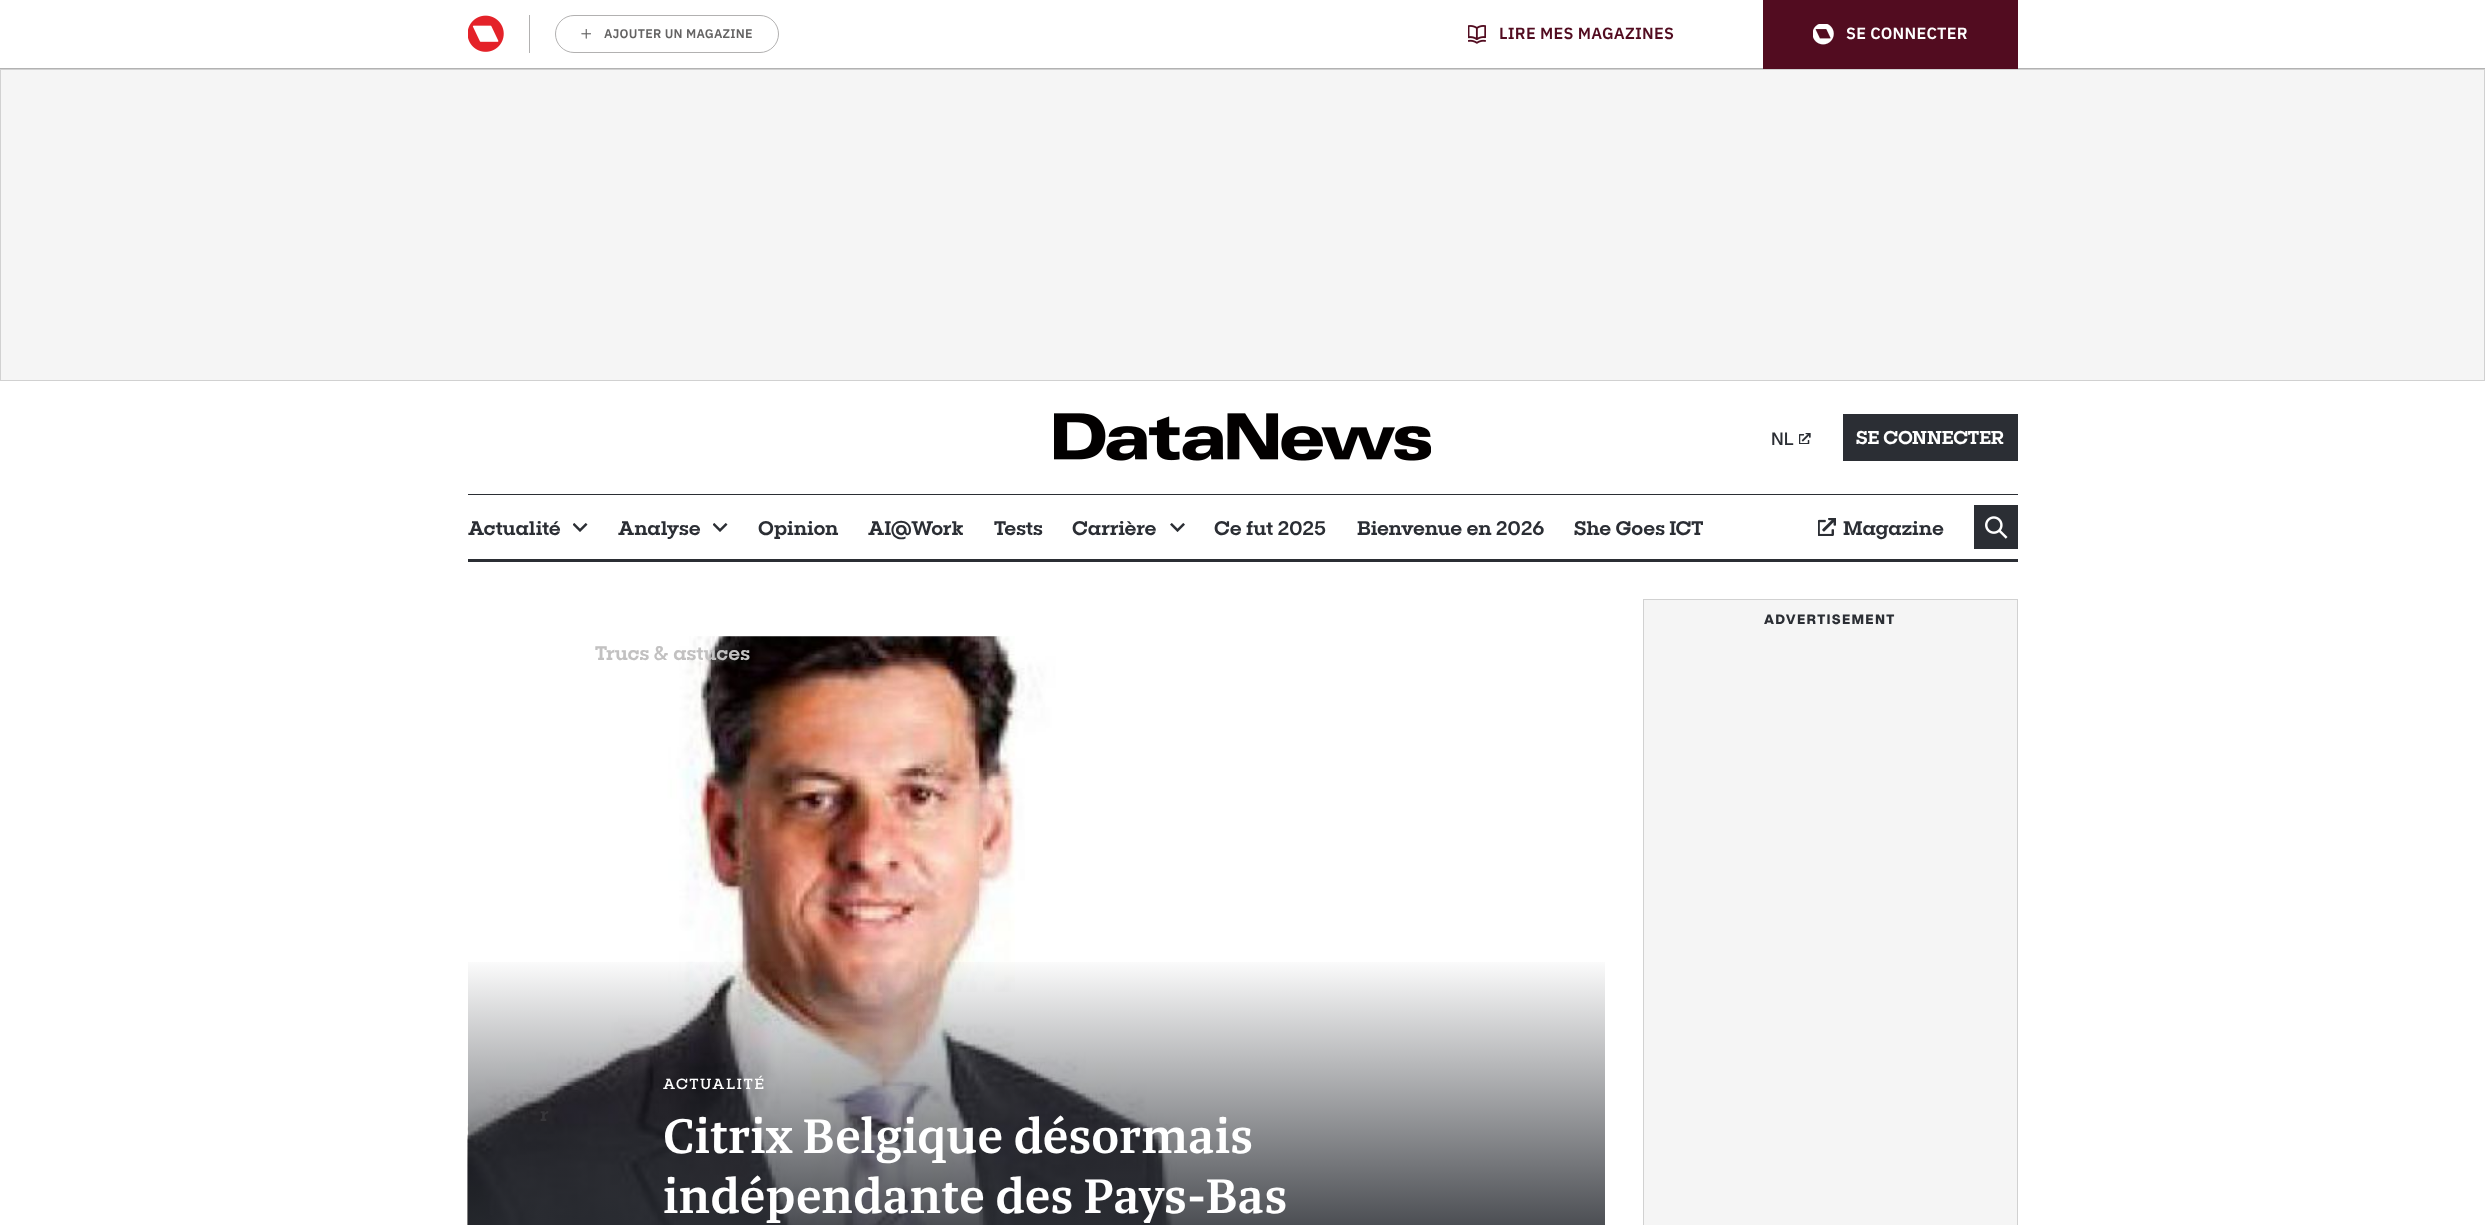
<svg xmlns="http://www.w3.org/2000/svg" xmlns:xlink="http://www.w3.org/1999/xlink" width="2485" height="1225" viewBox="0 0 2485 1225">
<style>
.cls-1{font:600 12.5px IBM Plex Sans;letter-spacing:0.25px;fill:#646363}
.cls-2{font:600 16.25px IBM Plex Sans;letter-spacing:0.25px;fill:#520c20}
.cls-3{font:600 16.25px IBM Plex Sans;letter-spacing:0.25px;fill:#ffffff}
.cls-4{font:18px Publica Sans;fill:#2b2e34}
.cls-5{font:500 18.75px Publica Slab;fill:#ffffff}
.cls-6{font:500 20px Publica Slab;fill:#2b2e34}
.cls-7{font:500 20px Publica Slab;fill:#37363a}
.cls-8{font:500 20px Publica Slab;fill:#c2c1c1}
.cls-9{font:bold 13.75px Publica Sans;letter-spacing:1.25px;fill:#2b2e34}
.cls-10{font:15px Publica Slab;letter-spacing:1.9px;fill:#ffffff}
.cls-11{font:600 52.5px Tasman;fill:#ffffff}
</style>
<defs>
<linearGradient id="g1" gradientUnits="userSpaceOnUse" x1="1036" y1="636" x2="1036" y2="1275"><stop offset="0.5" stop-color="#2b2e34" stop-opacity="0"/><stop offset="1" stop-color="#2b2e34"/></linearGradient>
</defs>
<rect width="100%" height="100%" fill="#ffffff"/>
<rect fill="#b2b2b2" x="0" y="68" width="2485" height="1"/>
<rect fill="#b2b1b1" x="529" y="15" width="1" height="38"/>
<image xlink:href="image0.png" x="468" y="15" width="36" height="37"/>
<rect fill="none" stroke="#b2b1b1" x="555.5" y="15.5" width="223" height="37" rx="18.5"/>
<image xlink:href="image1.png" x="581" y="29" width="10" height="10"/>
<image xlink:href="image2.png" x="1468" y="25" width="18" height="19"/>
<rect fill="#520c20" x="1763" y="0" width="255" height="69"/>
<image xlink:href="image3.png" x="1813" y="24" width="21" height="21"/>
<rect fill="#f5f5f5" stroke="#d1d1d1" x="0.5" y="69.5" width="2484" height="311"/>
<image xlink:href="image4.png" x="1054" y="413" width="377" height="48"/>
<image xlink:href="image5.png" x="1799" y="433" width="12" height="11"/>
<rect fill="#2b2e34" x="1843" y="414" width="175" height="47"/>
<rect fill="#2b2e34" x="468" y="494" width="1550" height="1"/>
<rect fill="#2b2e34" x="468" y="559" width="1550" height="3"/>
<image xlink:href="image6.png" x="573" y="523" width="15" height="9"/>
<image xlink:href="image6.png" x="713" y="523" width="15" height="9"/>
<image xlink:href="image7.png" x="1170" y="523" width="15" height="9"/>
<image xlink:href="image8.png" x="1818" y="518" width="18" height="18"/>
<rect fill="#2b2e34" x="1974" y="505" width="44" height="44"/>
<image xlink:href="image9.png" x="1985" y="516" width="23" height="23"/>
<rect fill="#f5f5f5" stroke="#d1d1d1" x="1643.5" y="599.5" width="374" height="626"/>
<image xlink:href="image10.png" x="467" y="636" width="710" height="589"/>
<rect fill="url(#g1)" x="468" y="962" width="1137" height="263"/>
<text class="cls-1" x="604" y="38">AJOUTER UN MAGAZINE</text>
<text class="cls-2" x="1499" y="39">LIRE MES MAGAZINES</text>
<text class="cls-3" x="1846" y="39">SE CONNECTER</text>
<text class="cls-4" x="1771" y="445">NL</text>
<text class="cls-5" x="1856" y="444">SE CONNECTER</text>
<text class="cls-6" x="468" y="535">Actualité</text>
<text class="cls-7" x="540" y="1121">r</text>
<text class="cls-6" x="618" y="535">Analyse</text>
<text class="cls-8" x="595" y="660">Trucs &amp; astuces</text>
<text class="cls-6" x="758" y="535">Opinion</text>
<text class="cls-6" x="868" y="535">AI@Work</text>
<text class="cls-6" x="994" y="535">Tests</text>
<text class="cls-6" x="1072" y="535">Carrière</text>
<text class="cls-6" x="1214" y="535">Ce fut 2025</text>
<text class="cls-6" x="1357" y="535">Bienvenue en 2026</text>
<text class="cls-6" x="1574" y="535">She Goes ICT</text>
<text class="cls-6" x="1843" y="535">Magazine</text>
<text class="cls-9" x="1764" y="624">ADVERTISEMENT</text>
<text class="cls-10" x="663" y="1089">ACTUALITÉ</text>
<text class="cls-11"><tspan x="663" y="1153">Citrix Belgique désormais</tspan><tspan x="663" y="1213">indépendante des Pays-Bas</tspan></text>
</svg>
